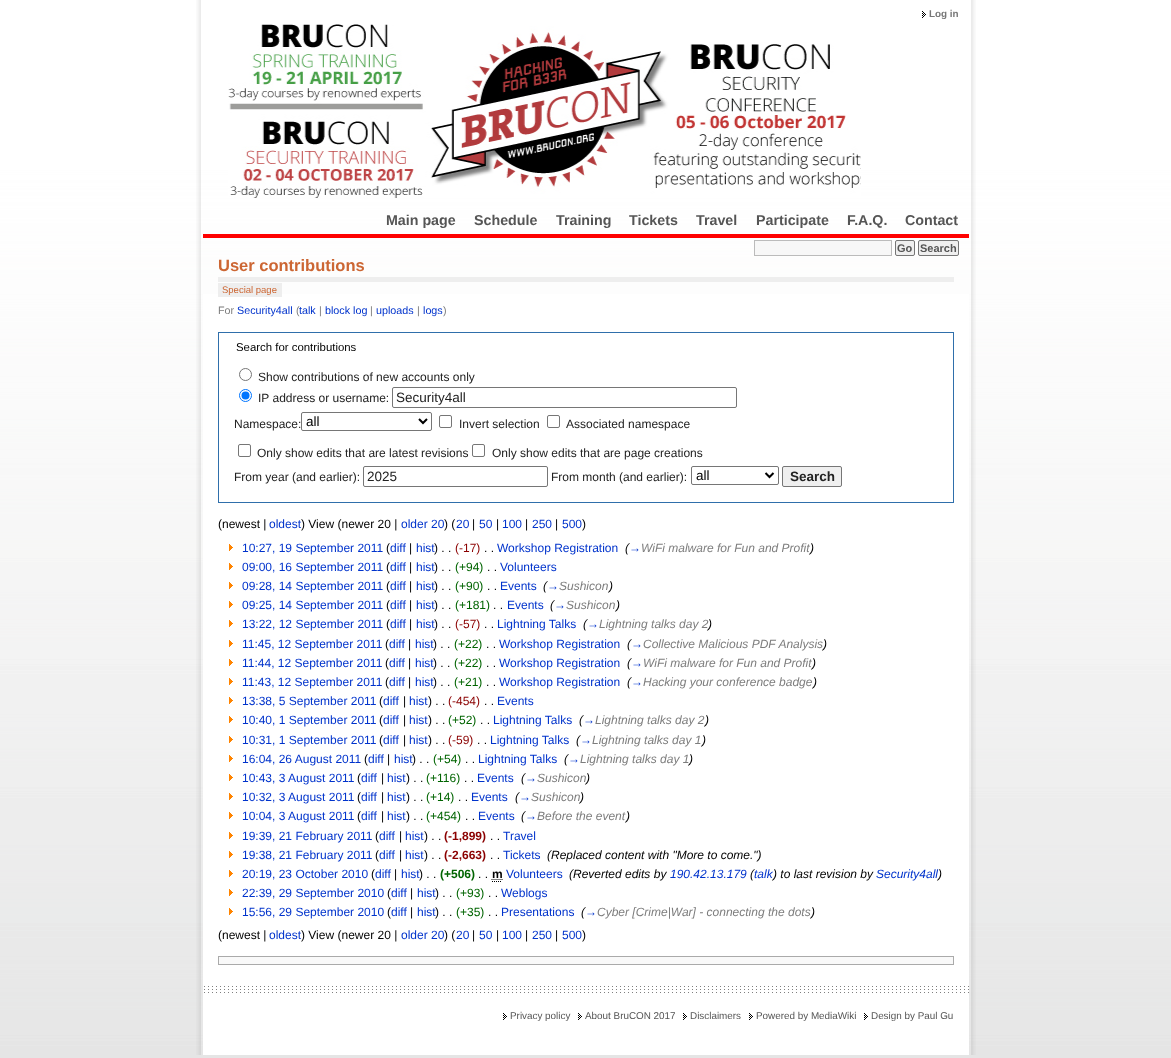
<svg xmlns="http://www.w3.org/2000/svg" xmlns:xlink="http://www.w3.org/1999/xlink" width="1171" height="1058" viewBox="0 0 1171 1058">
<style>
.cls-1{font:bold 9.9px Liberation Sans;fill:#777777}
.cls-2{font:bold 11px Liberation Sans;fill:#555555}
.cls-3{font:bold 14.25px Liberation Sans;fill:#555555}
.cls-4{font:bold 16.5px Liberation Sans;fill:#cc6633}
.cls-5{font:9.5px Liberation Sans;fill:#cc6633}
.cls-6{font:10.75px Liberation Sans;fill:#7d7d7d}
.cls-7{font:10.75px Liberation Sans;fill:#0033cc}
.cls-8{font:11.4px Liberation Sans;fill:#000000}
.cls-9{font:12px Liberation Sans;fill:#222222}
.cls-10{font:13.5px Liberation Sans;fill:#222222}
.cls-11{font:13.5px Liberation Sans;fill:#000000}
.cls-12{font:bold 13.5px Liberation Sans;fill:#222222}
.cls-13{font:12px Liberation Sans;fill:#000000}
.cls-14{font:12px Liberation Sans;fill:#0033cc}
.cls-15{font:12px Liberation Sans;fill:#8b0000}
.cls-16{font:italic 12px Liberation Sans;fill:#000000}
.cls-17{font:italic 12px Liberation Sans;fill:#0033cc}
.cls-18{font:italic 12px Liberation Sans;fill:#7d7d7d}
.cls-19{font:12px Liberation Sans;fill:#006400}
.cls-20{font:bold 12px Liberation Sans;fill:#8b0000}
.cls-21{font:bold 12px Liberation Sans;fill:#006400}
.cls-22{font:bold 12px Liberation Sans;fill:#000000}
.cls-23{font:9.9px Liberation Sans;fill:#555555}
</style>
<rect width="100%" height="100%" fill="#ffffff"/>
<image xlink:href="image0.png" x="0" y="0" width="1171" height="1058"/>
<image xlink:href="image1.png" x="196" y="0" width="5" height="1055"/>
<image xlink:href="image2.png" x="971" y="0" width="5" height="1055"/>
<rect fill="#ffffff" x="203" y="294" width="766" height="761"/>
<image xlink:href="image3.png" x="922" y="11" width="4" height="7"/>
<image xlink:href="image4.png" x="228" y="24" width="633" height="174"/>
<rect fill="#f7f7f7" stroke="#bbbbbb" x="754.5" y="240.5" width="137" height="15"/>
<rect fill="#efefef" stroke="#767676" x="895.5" y="240.5" width="19" height="15" rx="1.5"/>
<rect fill="#efefef" stroke="#767676" x="918.5" y="240.5" width="40" height="15" rx="1.5"/>
<rect fill="#ff0000" x="203" y="234" width="766" height="4"/>
<rect fill="#eeeeee" x="218" y="277" width="736" height="5"/>
<rect fill="#eeeeee" x="218" y="283" width="64" height="14"/>
<rect fill="none" stroke="#2f6fab" x="218.5" y="332.5" width="735" height="170"/>
<circle fill="none" stroke="#767676" cx="245.5" cy="374.5" r="6"/>
<circle fill="none" stroke="#0075ff" cx="245.5" cy="395.5" r="6"/>
<circle fill="#0075ff" cx="245.5" cy="395.5" r="4"/>
<rect fill="none" stroke="#767676" x="392.5" y="387.5" width="344" height="20" rx="1.5"/>
<rect fill="none" stroke="#767676" x="301.5" y="412.5" width="130" height="18" rx="1.5"/>
<path fill="none" stroke="#000000" stroke-width="2" d="M419 419L423 423L427 419"/>
<rect fill="none" stroke="#767676" x="439.5" y="415.5" width="12" height="12" rx="1.5"/>
<rect fill="none" stroke="#767676" x="547.5" y="415.5" width="12" height="12" rx="1.5"/>
<rect fill="none" stroke="#767676" x="238.5" y="444.5" width="12" height="12" rx="1.5"/>
<rect fill="none" stroke="#767676" x="472.5" y="444.5" width="12" height="12" rx="1.5"/>
<rect fill="none" stroke="#767676" x="363.5" y="466.5" width="184" height="20" rx="1.5"/>
<rect fill="none" stroke="#767676" x="691.5" y="466.5" width="87" height="18" rx="1.5"/>
<path fill="none" stroke="#000000" stroke-width="2" d="M765.5 473L769.5 477L773.5 473"/>
<rect fill="#efefef" stroke="#767676" x="782.5" y="466.5" width="59" height="20" rx="1.5"/>
<image xlink:href="image5.png" x="229" y="544" width="4" height="7"/>
<image xlink:href="image5.png" x="229" y="563" width="4" height="7"/>
<image xlink:href="image5.png" x="229" y="582" width="4" height="7"/>
<image xlink:href="image5.png" x="229" y="601" width="4" height="7"/>
<image xlink:href="image5.png" x="229" y="620" width="4" height="7"/>
<image xlink:href="image5.png" x="229" y="640" width="4" height="7"/>
<image xlink:href="image5.png" x="229" y="659" width="4" height="7"/>
<image xlink:href="image5.png" x="229" y="678" width="4" height="7"/>
<image xlink:href="image5.png" x="229" y="697" width="4" height="7"/>
<image xlink:href="image5.png" x="229" y="716" width="4" height="7"/>
<image xlink:href="image5.png" x="229" y="736" width="4" height="7"/>
<image xlink:href="image5.png" x="229" y="755" width="4" height="7"/>
<image xlink:href="image5.png" x="229" y="774" width="4" height="7"/>
<image xlink:href="image5.png" x="229" y="793" width="4" height="7"/>
<image xlink:href="image5.png" x="229" y="812" width="4" height="7"/>
<image xlink:href="image5.png" x="229" y="832" width="4" height="7"/>
<image xlink:href="image5.png" x="229" y="851" width="4" height="7"/>
<image xlink:href="image5.png" x="229" y="870" width="4" height="7"/>
<path fill="none" stroke="#000000" stroke-dasharray="1 1" d="M492 881.5H502M491.5 879.5H502.5"/>
<image xlink:href="image5.png" x="229" y="889" width="4" height="7"/>
<image xlink:href="image5.png" x="229" y="908" width="4" height="7"/>
<rect fill="#f9f9f9" stroke="#aaaaaa" x="218.5" y="956.5" width="735" height="8"/>
<image xlink:href="image6.png" x="204" y="986" width="765" height="7"/>
<image xlink:href="image3.png" x="503" y="1013" width="4" height="7"/>
<image xlink:href="image3.png" x="578" y="1013" width="4" height="7"/>
<image xlink:href="image3.png" x="683" y="1013" width="4" height="7"/>
<image xlink:href="image3.png" x="749" y="1013" width="4" height="7"/>
<image xlink:href="image3.png" x="864" y="1013" width="4" height="7"/>
<text class="cls-1" x="929" y="17">Log in</text>
<text class="cls-2" x="897" y="252">Go</text>
<text class="cls-2" x="920" y="252">Search</text>
<text class="cls-3" x="386" y="225">Main page</text>
<text class="cls-3" x="474" y="225">Schedule</text>
<text class="cls-3" x="556" y="225">Training</text>
<text class="cls-3" x="629" y="225">Tickets</text>
<text class="cls-3" x="696" y="225">Travel</text>
<text class="cls-3" x="756" y="225">Participate</text>
<text class="cls-3" x="847" y="225">F.A.Q.</text>
<text class="cls-3" x="905" y="225">Contact</text>
<text class="cls-4" x="218" y="271">User contributions</text>
<text class="cls-5" x="222" y="293">Special page</text>
<text class="cls-6" x="218" y="314">For</text>
<text class="cls-7" x="237" y="314">Security4all</text>
<text class="cls-6" x="296" y="314">(</text>
<text class="cls-7" x="299" y="314">talk</text>
<text class="cls-6" x="319" y="314">|</text>
<text class="cls-7" x="325" y="314">block log</text>
<text class="cls-6" x="370" y="314">|</text>
<text class="cls-7" x="376" y="314">uploads</text>
<text class="cls-6" x="417" y="314">|</text>
<text class="cls-7" x="423" y="314">logs</text>
<text class="cls-6" x="443" y="314">)</text>
<text class="cls-8" x="236" y="351">Search for contributions</text>
<text class="cls-9"><tspan x="258" y="381">Show contributions of new accounts only</tspan><tspan x="258" y="402">IP address or username:</tspan></text>
<text class="cls-10" x="396" y="402">Security4all</text>
<text class="cls-9" x="234" y="428">Namespace:</text>
<text class="cls-11" x="306" y="426">all</text>
<text class="cls-9" x="459" y="428">Invert selection</text>
<text class="cls-9" x="566" y="428">Associated namespace</text>
<text class="cls-9" x="257" y="457">Only show edits that are latest revisions</text>
<text class="cls-9" x="492" y="457">Only show edits that are page creations</text>
<text class="cls-9" x="234" y="481">From year (and earlier):</text>
<text class="cls-10" x="367" y="481">2025</text>
<text class="cls-9" x="551" y="481">From month (and earlier):</text>
<text class="cls-11" x="696" y="480">all</text>
<text class="cls-12" x="790" y="481">Search</text>
<text class="cls-13" x="218" y="528">(newest |</text>
<text class="cls-14" x="269" y="528">oldest</text>
<text class="cls-13" x="301" y="528">) View (newer 20 |</text>
<text class="cls-14" x="401" y="528">older 20</text>
<text class="cls-13" x="444" y="528">) (</text>
<text class="cls-14" x="456" y="528">20</text>
<text class="cls-13" x="472" y="528">|</text>
<text class="cls-14" x="479" y="528">50</text>
<text class="cls-13" x="496" y="528">|</text>
<text class="cls-14" x="502" y="528">100</text>
<text class="cls-13" x="525" y="528">|</text>
<text class="cls-14" x="532" y="528">250</text>
<text class="cls-13" x="555" y="528">|</text>
<text class="cls-14" x="562" y="528">500</text>
<text class="cls-13" x="582" y="528">)</text>
<text class="cls-14" x="242" y="552">10:27, 19 September 2011</text>
<text class="cls-13" x="386" y="552">(</text>
<text class="cls-14" x="390" y="552">diff</text>
<text class="cls-13" x="409" y="552">|</text>
<text class="cls-14" x="416" y="552">hist</text>
<text class="cls-13" x="434" y="552">) . .</text>
<text class="cls-15" x="455" y="552">(-17)</text>
<text class="cls-13" x="484" y="552">. .</text>
<text class="cls-14" x="497" y="552">Workshop Registration</text>
<text class="cls-16" x="625" y="552">(</text>
<text class="cls-17" x="629" y="552">→</text>
<text class="cls-18" x="641" y="552">WiFi malware for Fun and Profit</text>
<text class="cls-16" x="810" y="552">)</text>
<text class="cls-14" x="242" y="571">09:00, 16 September 2011</text>
<text class="cls-13" x="386" y="571">(</text>
<text class="cls-14" x="390" y="571">diff</text>
<text class="cls-13" x="409" y="571">|</text>
<text class="cls-14" x="416" y="571">hist</text>
<text class="cls-13" x="434" y="571">) . .</text>
<text class="cls-19" x="455" y="571">(+94)</text>
<text class="cls-13" x="487" y="571">. .</text>
<text class="cls-14" x="500" y="571">Volunteers</text>
<text class="cls-14" x="242" y="590">09:28, 14 September 2011</text>
<text class="cls-13" x="386" y="590">(</text>
<text class="cls-14" x="390" y="590">diff</text>
<text class="cls-13" x="409" y="590">|</text>
<text class="cls-14" x="416" y="590">hist</text>
<text class="cls-13" x="434" y="590">) . .</text>
<text class="cls-19" x="455" y="590">(+90)</text>
<text class="cls-13" x="487" y="590">. .</text>
<text class="cls-14" x="500" y="590">Events</text>
<text class="cls-16" x="543" y="590">(</text>
<text class="cls-17" x="547" y="590">→</text>
<text class="cls-18" x="559" y="590">Sushicon</text>
<text class="cls-16" x="609" y="590">)</text>
<text class="cls-14" x="242" y="609">09:25, 14 September 2011</text>
<text class="cls-13" x="386" y="609">(</text>
<text class="cls-14" x="390" y="609">diff</text>
<text class="cls-13" x="409" y="609">|</text>
<text class="cls-14" x="416" y="609">hist</text>
<text class="cls-13" x="434" y="609">) . .</text>
<text class="cls-19" x="455" y="609">(+181)</text>
<text class="cls-13" x="493" y="609">. .</text>
<text class="cls-14" x="507" y="609">Events</text>
<text class="cls-16" x="550" y="609">(</text>
<text class="cls-17" x="554" y="609">→</text>
<text class="cls-18" x="566" y="609">Sushicon</text>
<text class="cls-16" x="616" y="609">)</text>
<text class="cls-14" x="242" y="628">13:22, 12 September 2011</text>
<text class="cls-13" x="386" y="628">(</text>
<text class="cls-14" x="390" y="628">diff</text>
<text class="cls-13" x="409" y="628">|</text>
<text class="cls-14" x="416" y="628">hist</text>
<text class="cls-13" x="434" y="628">) . .</text>
<text class="cls-15" x="455" y="628">(-57)</text>
<text class="cls-13" x="484" y="628">. .</text>
<text class="cls-14" x="497" y="628">Lightning Talks</text>
<text class="cls-16" x="583" y="628">(</text>
<text class="cls-17" x="587" y="628">→</text>
<text class="cls-18" x="599" y="628">Lightning talks day 2</text>
<text class="cls-16" x="708" y="628">)</text>
<text class="cls-14" x="242" y="648">11:45, 12 September 2011</text>
<text class="cls-13" x="385" y="648">(</text>
<text class="cls-14" x="389" y="648">diff</text>
<text class="cls-13" x="408" y="648">|</text>
<text class="cls-14" x="415" y="648">hist</text>
<text class="cls-13" x="433" y="648">) . .</text>
<text class="cls-19" x="454" y="648">(+22)</text>
<text class="cls-13" x="486" y="648">. .</text>
<text class="cls-14" x="499" y="648">Workshop Registration</text>
<text class="cls-16" x="627" y="648">(</text>
<text class="cls-17" x="631" y="648">→</text>
<text class="cls-18" x="643" y="648">Collective Malicious PDF Analysis</text>
<text class="cls-16" x="823" y="648">)</text>
<text class="cls-14" x="242" y="667">11:44, 12 September 2011</text>
<text class="cls-13" x="385" y="667">(</text>
<text class="cls-14" x="389" y="667">diff</text>
<text class="cls-13" x="408" y="667">|</text>
<text class="cls-14" x="415" y="667">hist</text>
<text class="cls-13" x="433" y="667">) . .</text>
<text class="cls-19" x="454" y="667">(+22)</text>
<text class="cls-14" x="499" y="667">Workshop Registration</text>
<text class="cls-16" x="627" y="667">(</text>
<text class="cls-18" x="643" y="667">WiFi malware for Fun and Profit</text>
<text class="cls-13" x="486" y="667">. .</text>
<text class="cls-17" x="631" y="667">→</text>
<text class="cls-16" x="812" y="667">)</text>
<text class="cls-14" x="242" y="686">11:43, 12 September 2011</text>
<text class="cls-13" x="385" y="686">(</text>
<text class="cls-14" x="389" y="686">diff</text>
<text class="cls-13" x="408" y="686">|</text>
<text class="cls-14" x="415" y="686">hist</text>
<text class="cls-13" x="433" y="686">) . .</text>
<text class="cls-19" x="454" y="686">(+21)</text>
<text class="cls-13" x="486" y="686">. .</text>
<text class="cls-14" x="499" y="686">Workshop Registration</text>
<text class="cls-16" x="627" y="686">(</text>
<text class="cls-17" x="631" y="686">→</text>
<text class="cls-18" x="643" y="686">Hacking your conference badge</text>
<text class="cls-16" x="813" y="686">)</text>
<text class="cls-14" x="242" y="705">13:38, 5 September 2011</text>
<text class="cls-13" x="379" y="705">(</text>
<text class="cls-14" x="383" y="705">diff</text>
<text class="cls-13" x="403" y="705">|</text>
<text class="cls-14" x="409" y="705">hist</text>
<text class="cls-13" x="428" y="705">) . .</text>
<text class="cls-15" x="448" y="705">(-454)</text>
<text class="cls-13" x="484" y="705">. .</text>
<text class="cls-14" x="497" y="705">Events</text>
<text class="cls-14" x="242" y="724">10:40, 1 September 2011</text>
<text class="cls-13" x="379" y="724">(</text>
<text class="cls-14" x="383" y="724">diff</text>
<text class="cls-13" x="403" y="724">|</text>
<text class="cls-14" x="409" y="724">hist</text>
<text class="cls-13" x="428" y="724">) . .</text>
<text class="cls-19" x="448" y="724">(+52)</text>
<text class="cls-13" x="480" y="724">. .</text>
<text class="cls-14" x="493" y="724">Lightning Talks</text>
<text class="cls-16" x="579" y="724">(</text>
<text class="cls-17" x="583" y="724">→</text>
<text class="cls-18" x="595" y="724">Lightning talks day 2</text>
<text class="cls-16" x="705" y="724">)</text>
<text class="cls-14" x="242" y="744">10:31, 1 September 2011</text>
<text class="cls-13" x="379" y="744">(</text>
<text class="cls-14" x="383" y="744">diff</text>
<text class="cls-13" x="403" y="744">|</text>
<text class="cls-14" x="409" y="744">hist</text>
<text class="cls-13" x="428" y="744">) . .</text>
<text class="cls-15" x="448" y="744">(-59)</text>
<text class="cls-13" x="477" y="744">. .</text>
<text class="cls-14" x="490" y="744">Lightning Talks</text>
<text class="cls-16" x="576" y="744">(</text>
<text class="cls-17" x="580" y="744">→</text>
<text class="cls-18" x="592" y="744">Lightning talks day 1</text>
<text class="cls-16" x="702" y="744">)</text>
<text class="cls-14" x="242" y="763">16:04, 26 August 2011</text>
<text class="cls-13" x="364" y="763">(</text>
<text class="cls-14" x="368" y="763">diff</text>
<text class="cls-13" x="387" y="763">|</text>
<text class="cls-14" x="394" y="763">hist</text>
<text class="cls-13" x="412" y="763">) . .</text>
<text class="cls-19" x="433" y="763">(+54)</text>
<text class="cls-13" x="465" y="763">. .</text>
<text class="cls-14" x="478" y="763">Lightning Talks</text>
<text class="cls-16" x="564" y="763">(</text>
<text class="cls-17" x="568" y="763">→</text>
<text class="cls-18" x="580" y="763">Lightning talks day 1</text>
<text class="cls-16" x="689" y="763">)</text>
<text class="cls-14" x="242" y="782">10:43, 3 August 2011</text>
<text class="cls-13" x="357" y="782">(</text>
<text class="cls-14" x="361" y="782">diff</text>
<text class="cls-13" x="381" y="782">|</text>
<text class="cls-14" x="387" y="782">hist</text>
<text class="cls-13" x="406" y="782">) . .</text>
<text class="cls-19" x="426" y="782">(+116)</text>
<text class="cls-13" x="464" y="782">. .</text>
<text class="cls-14" x="477" y="782">Events</text>
<text class="cls-16" x="521" y="782">(</text>
<text class="cls-17" x="525" y="782">→</text>
<text class="cls-18" x="537" y="782">Sushicon</text>
<text class="cls-16" x="586" y="782">)</text>
<text class="cls-14" x="242" y="801">10:32, 3 August 2011</text>
<text class="cls-13" x="357" y="801">(</text>
<text class="cls-14" x="361" y="801">diff</text>
<text class="cls-13" x="381" y="801">|</text>
<text class="cls-14" x="387" y="801">hist</text>
<text class="cls-13" x="406" y="801">) . .</text>
<text class="cls-19" x="426" y="801">(+14)</text>
<text class="cls-13" x="458" y="801">. .</text>
<text class="cls-14" x="471" y="801">Events</text>
<text class="cls-16" x="515" y="801">(</text>
<text class="cls-17" x="519" y="801">→</text>
<text class="cls-18" x="531" y="801">Sushicon</text>
<text class="cls-16" x="580" y="801">)</text>
<text class="cls-14" x="242" y="820">10:04, 3 August 2011</text>
<text class="cls-13" x="357" y="820">(</text>
<text class="cls-14" x="361" y="820">diff</text>
<text class="cls-13" x="381" y="820">|</text>
<text class="cls-14" x="387" y="820">hist</text>
<text class="cls-13" x="406" y="820">) . .</text>
<text class="cls-19" x="426" y="820">(+454)</text>
<text class="cls-13" x="465" y="820">. .</text>
<text class="cls-14" x="478" y="820">Events</text>
<text class="cls-16" x="521" y="820">(</text>
<text class="cls-17" x="525" y="820">→</text>
<text class="cls-18" x="537" y="820">Before the event</text>
<text class="cls-16" x="626" y="820">)</text>
<text class="cls-14" x="242" y="840">19:39, 21 February 2011</text>
<text class="cls-13" x="375" y="840">(</text>
<text class="cls-14" x="379" y="840">diff</text>
<text class="cls-13" x="399" y="840">|</text>
<text class="cls-14" x="405" y="840">hist</text>
<text class="cls-13" x="424" y="840">) . .</text>
<text class="cls-20" x="444" y="840">(-1,899)</text>
<text class="cls-13" x="490" y="840">. .</text>
<text class="cls-14" x="503" y="840">Travel</text>
<text class="cls-14" x="242" y="859">19:38, 21 February 2011</text>
<text class="cls-13" x="375" y="859">(</text>
<text class="cls-14" x="379" y="859">diff</text>
<text class="cls-13" x="399" y="859">|</text>
<text class="cls-14" x="405" y="859">hist</text>
<text class="cls-13" x="424" y="859">) . .</text>
<text class="cls-20" x="444" y="859">(-2,663)</text>
<text class="cls-13" x="490" y="859">. .</text>
<text class="cls-14" x="503" y="859">Tickets</text>
<text class="cls-16" x="547" y="859">(Replaced content with "More to come.")</text>
<text class="cls-14" x="242" y="878">20:19, 23 October 2010</text>
<text class="cls-13" x="371" y="878">(</text>
<text class="cls-14" x="375" y="878">diff</text>
<text class="cls-13" x="394" y="878">|</text>
<text class="cls-14" x="401" y="878">hist</text>
<text class="cls-13" x="419" y="878">) . .</text>
<text class="cls-21" x="440" y="878">(+506)</text>
<text class="cls-14" x="506" y="878">Volunteers</text>
<text class="cls-16" x="569" y="878">(Reverted edits by</text>
<text class="cls-17" x="670" y="878">190.42.13.179</text>
<text class="cls-16" x="750" y="878">(</text>
<text class="cls-17" x="754" y="878">talk</text>
<text class="cls-16" x="773" y="878">) to last revision by</text>
<text class="cls-17" x="876" y="878">Security4all</text>
<text class="cls-13" x="478" y="878">. .</text>
<text class="cls-22" x="492" y="878">m</text>
<text class="cls-16" x="938" y="878">)</text>
<text class="cls-14" x="242" y="897">22:39, 29 September 2010</text>
<text class="cls-13" x="387" y="897">(</text>
<text class="cls-14" x="391" y="897">diff</text>
<text class="cls-13" x="410" y="897">|</text>
<text class="cls-14" x="417" y="897">hist</text>
<text class="cls-13" x="435" y="897">) . .</text>
<text class="cls-19" x="456" y="897">(+93)</text>
<text class="cls-13" x="488" y="897">. .</text>
<text class="cls-14" x="501" y="897">Weblogs</text>
<text class="cls-14" x="242" y="916">15:56, 29 September 2010</text>
<text class="cls-13" x="387" y="916">(</text>
<text class="cls-14" x="391" y="916">diff</text>
<text class="cls-13" x="410" y="916">|</text>
<text class="cls-14" x="417" y="916">hist</text>
<text class="cls-13" x="435" y="916">) . .</text>
<text class="cls-19" x="456" y="916">(+35)</text>
<text class="cls-13" x="488" y="916">. .</text>
<text class="cls-14" x="501" y="916">Presentations</text>
<text class="cls-16" x="581" y="916">(</text>
<text class="cls-17" x="585" y="916">→</text>
<text class="cls-18" x="597" y="916">Cyber [Crime|War] - connecting the dots</text>
<text class="cls-16" x="811" y="916">)</text>
<text class="cls-13" x="218" y="939">(newest |</text>
<text class="cls-14" x="269" y="939">oldest</text>
<text class="cls-13" x="301" y="939">) View (newer 20 |</text>
<text class="cls-14" x="401" y="939">older 20</text>
<text class="cls-13" x="444" y="939">) (</text>
<text class="cls-14" x="456" y="939">20</text>
<text class="cls-13" x="472" y="939">|</text>
<text class="cls-14" x="479" y="939">50</text>
<text class="cls-13" x="496" y="939">|</text>
<text class="cls-14" x="502" y="939">100</text>
<text class="cls-13" x="525" y="939">|</text>
<text class="cls-14" x="532" y="939">250</text>
<text class="cls-13" x="555" y="939">|</text>
<text class="cls-14" x="562" y="939">500</text>
<text class="cls-13" x="582" y="939">)</text>
<text class="cls-23" x="510" y="1019">Privacy policy</text>
<text class="cls-23" x="585" y="1019">About BruCON 2017</text>
<text class="cls-23" x="690" y="1019">Disclaimers</text>
<text class="cls-23" x="756" y="1019">Powered by MediaWiki</text>
<text class="cls-23" x="871" y="1019">Design by Paul Gu</text>
</svg>
